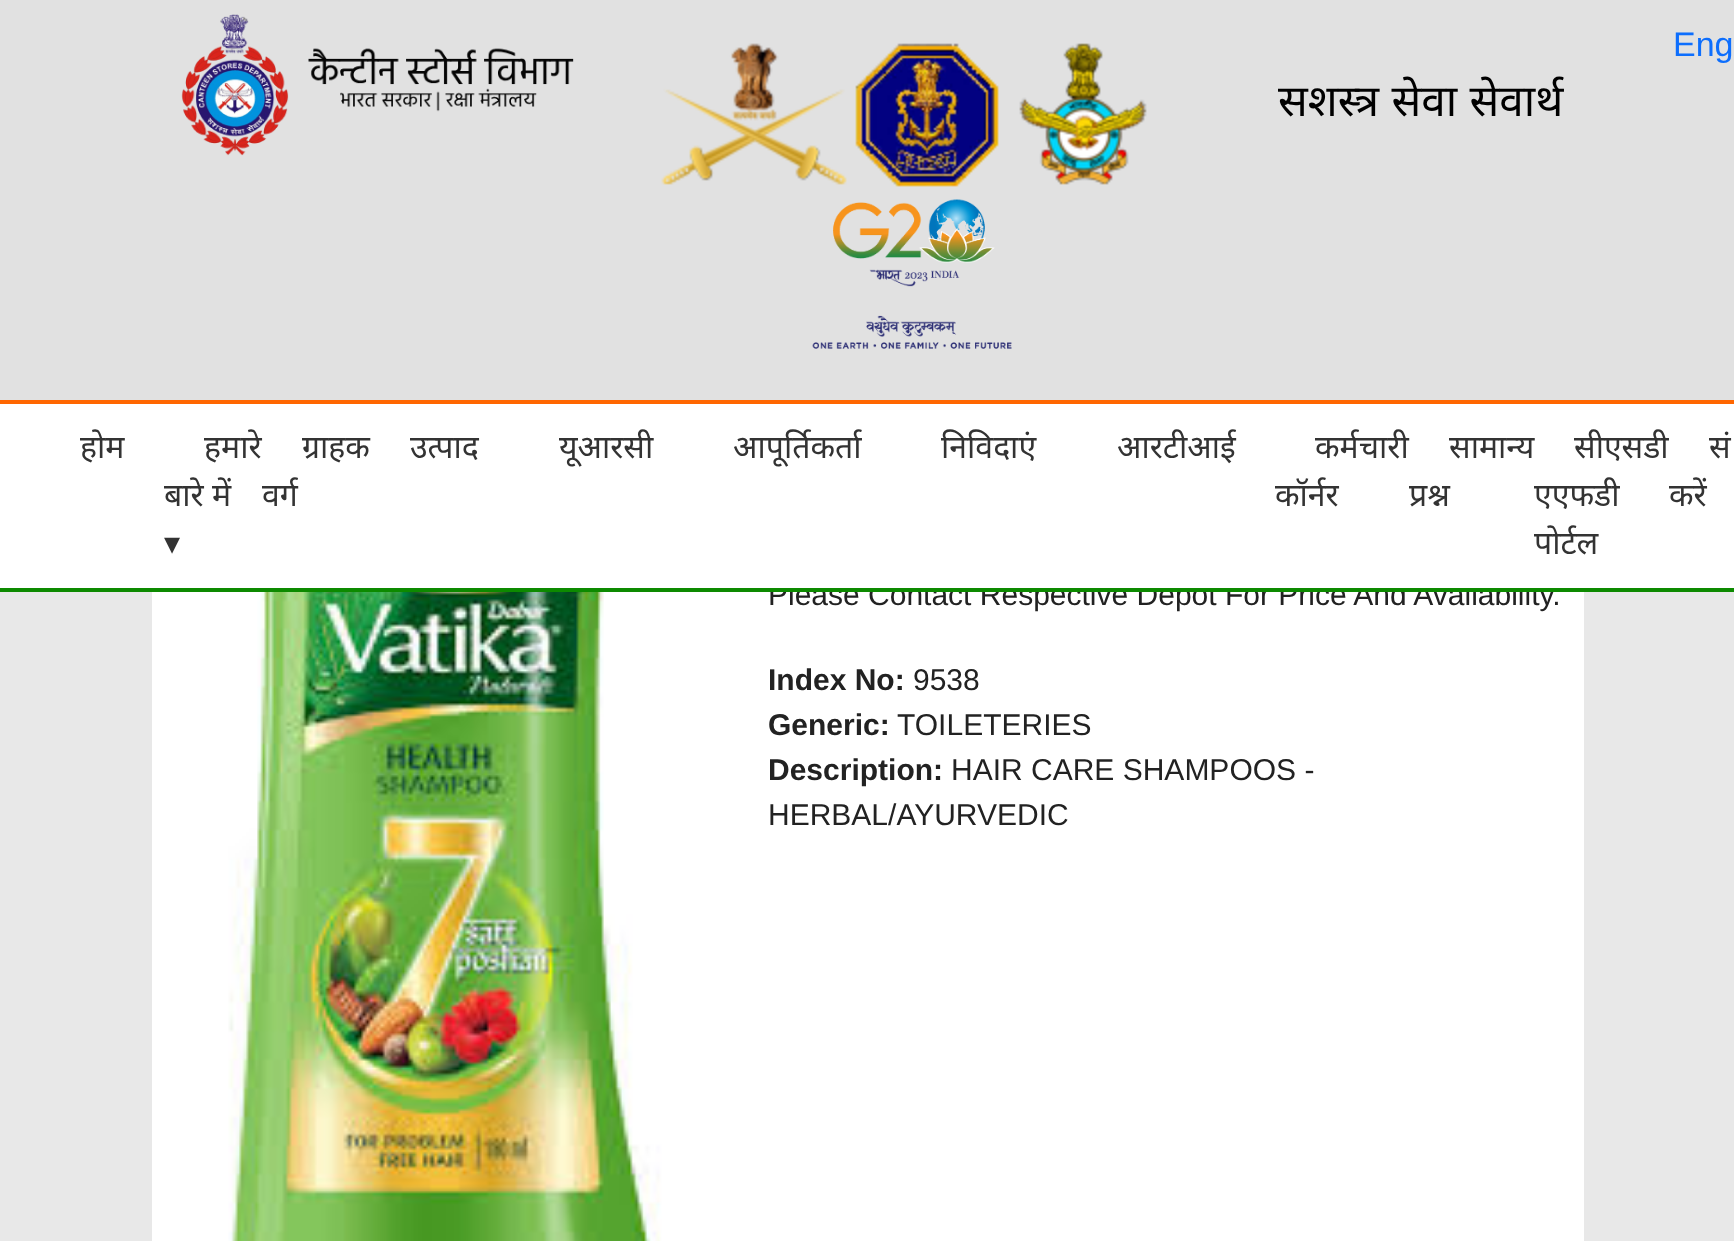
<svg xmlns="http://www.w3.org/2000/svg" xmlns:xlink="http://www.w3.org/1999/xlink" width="1734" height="1241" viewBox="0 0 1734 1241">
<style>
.cls-1{font:44px Noto Sans;fill:#000000}
.cls-2{font:34px Liberation Sans;fill:#0d6efd}
.cls-3{font:30px Liberation Sans;fill:#222222}
.cls-4{font:32px Noto Sans;fill:#333333}
.cls-5{font:32px DejaVu Sans;fill:#333333}
.cls-6{font:bold 30px Liberation Sans;fill:#222222}
</style>
<rect width="100%" height="100%" fill="#e8e8e8"/>
<rect fill="#e1e1e1" x="0" y="0" width="1734" height="400"/>
<image xlink:href="image0.png" x="181" y="14" width="393" height="142"/>
<image xlink:href="image1.png" x="661" y="43" width="486" height="144"/>
<image xlink:href="image2.png" x="812" y="199" width="200" height="150"/>
<rect fill="#ff6600" x="0" y="400" width="1734" height="4"/>
<rect fill="#ffffff" x="152" y="592" width="1432" height="649"/>
<image xlink:href="image3.png" x="172" y="592" width="556" height="649"/>
<text class="cls-1" x="1278" y="116" word-spacing="1">सशस्त्र सेवा सेवार्थ</text>
<text class="cls-2" x="1673" y="56">Eng</text>
<text class="cls-3" x="768" y="605">Please Contact Respective Depot For Price And Availability.</text>
<rect fill="#ffffff" x="0" y="404" width="1734" height="184"/>
<text class="cls-4" x="1669" y="506">करें</text>
<text class="cls-4" x="1709" y="458">सं</text>
<text class="cls-4" x="1534" y="554">पोर्टल</text>
<text class="cls-4" x="1534" y="506">एएफडी</text>
<text class="cls-4" x="1574" y="458">सीएसडी</text>
<text class="cls-4" x="1409" y="506">प्रश्न</text>
<text class="cls-4" x="1449" y="458">सामान्य</text>
<text class="cls-4" x="1275" y="506">कॉर्नर</text>
<text class="cls-4" x="1315" y="458">कर्मचारी</text>
<text class="cls-4" x="1117" y="458">आरटीआई</text>
<text class="cls-4" x="941" y="458">निविदाएं</text>
<text class="cls-4" x="733" y="458">आपूर्तिकर्ता</text>
<text class="cls-4" x="559" y="458">यूआरसी</text>
<text class="cls-4" x="410" y="458">उत्पाद</text>
<text class="cls-4" x="262" y="506">वर्ग</text>
<text class="cls-4" x="302" y="458">ग्राहक</text>
<text class="cls-5" x="164" y="554">▾</text>
<text class="cls-4" x="164" y="506">बारे में</text>
<text class="cls-4" x="204" y="458">हमारे</text>
<text class="cls-4" x="80" y="458">होम</text>
<rect fill="#0d8a00" x="0" y="588" width="1734" height="4"/>
<text class="cls-6" x="768" y="690">Index No:</text>
<text class="cls-3" x="913" y="690">9538</text>
<text class="cls-6" x="768" y="735">Generic:</text>
<text class="cls-3" x="897" y="735">TOILETERIES</text>
<text class="cls-6" x="768" y="780">Description:</text>
<text class="cls-3" x="951" y="780">HAIR CARE SHAMPOOS -</text>
<text class="cls-3" x="768" y="825">HERBAL/AYURVEDIC</text>
</svg>
